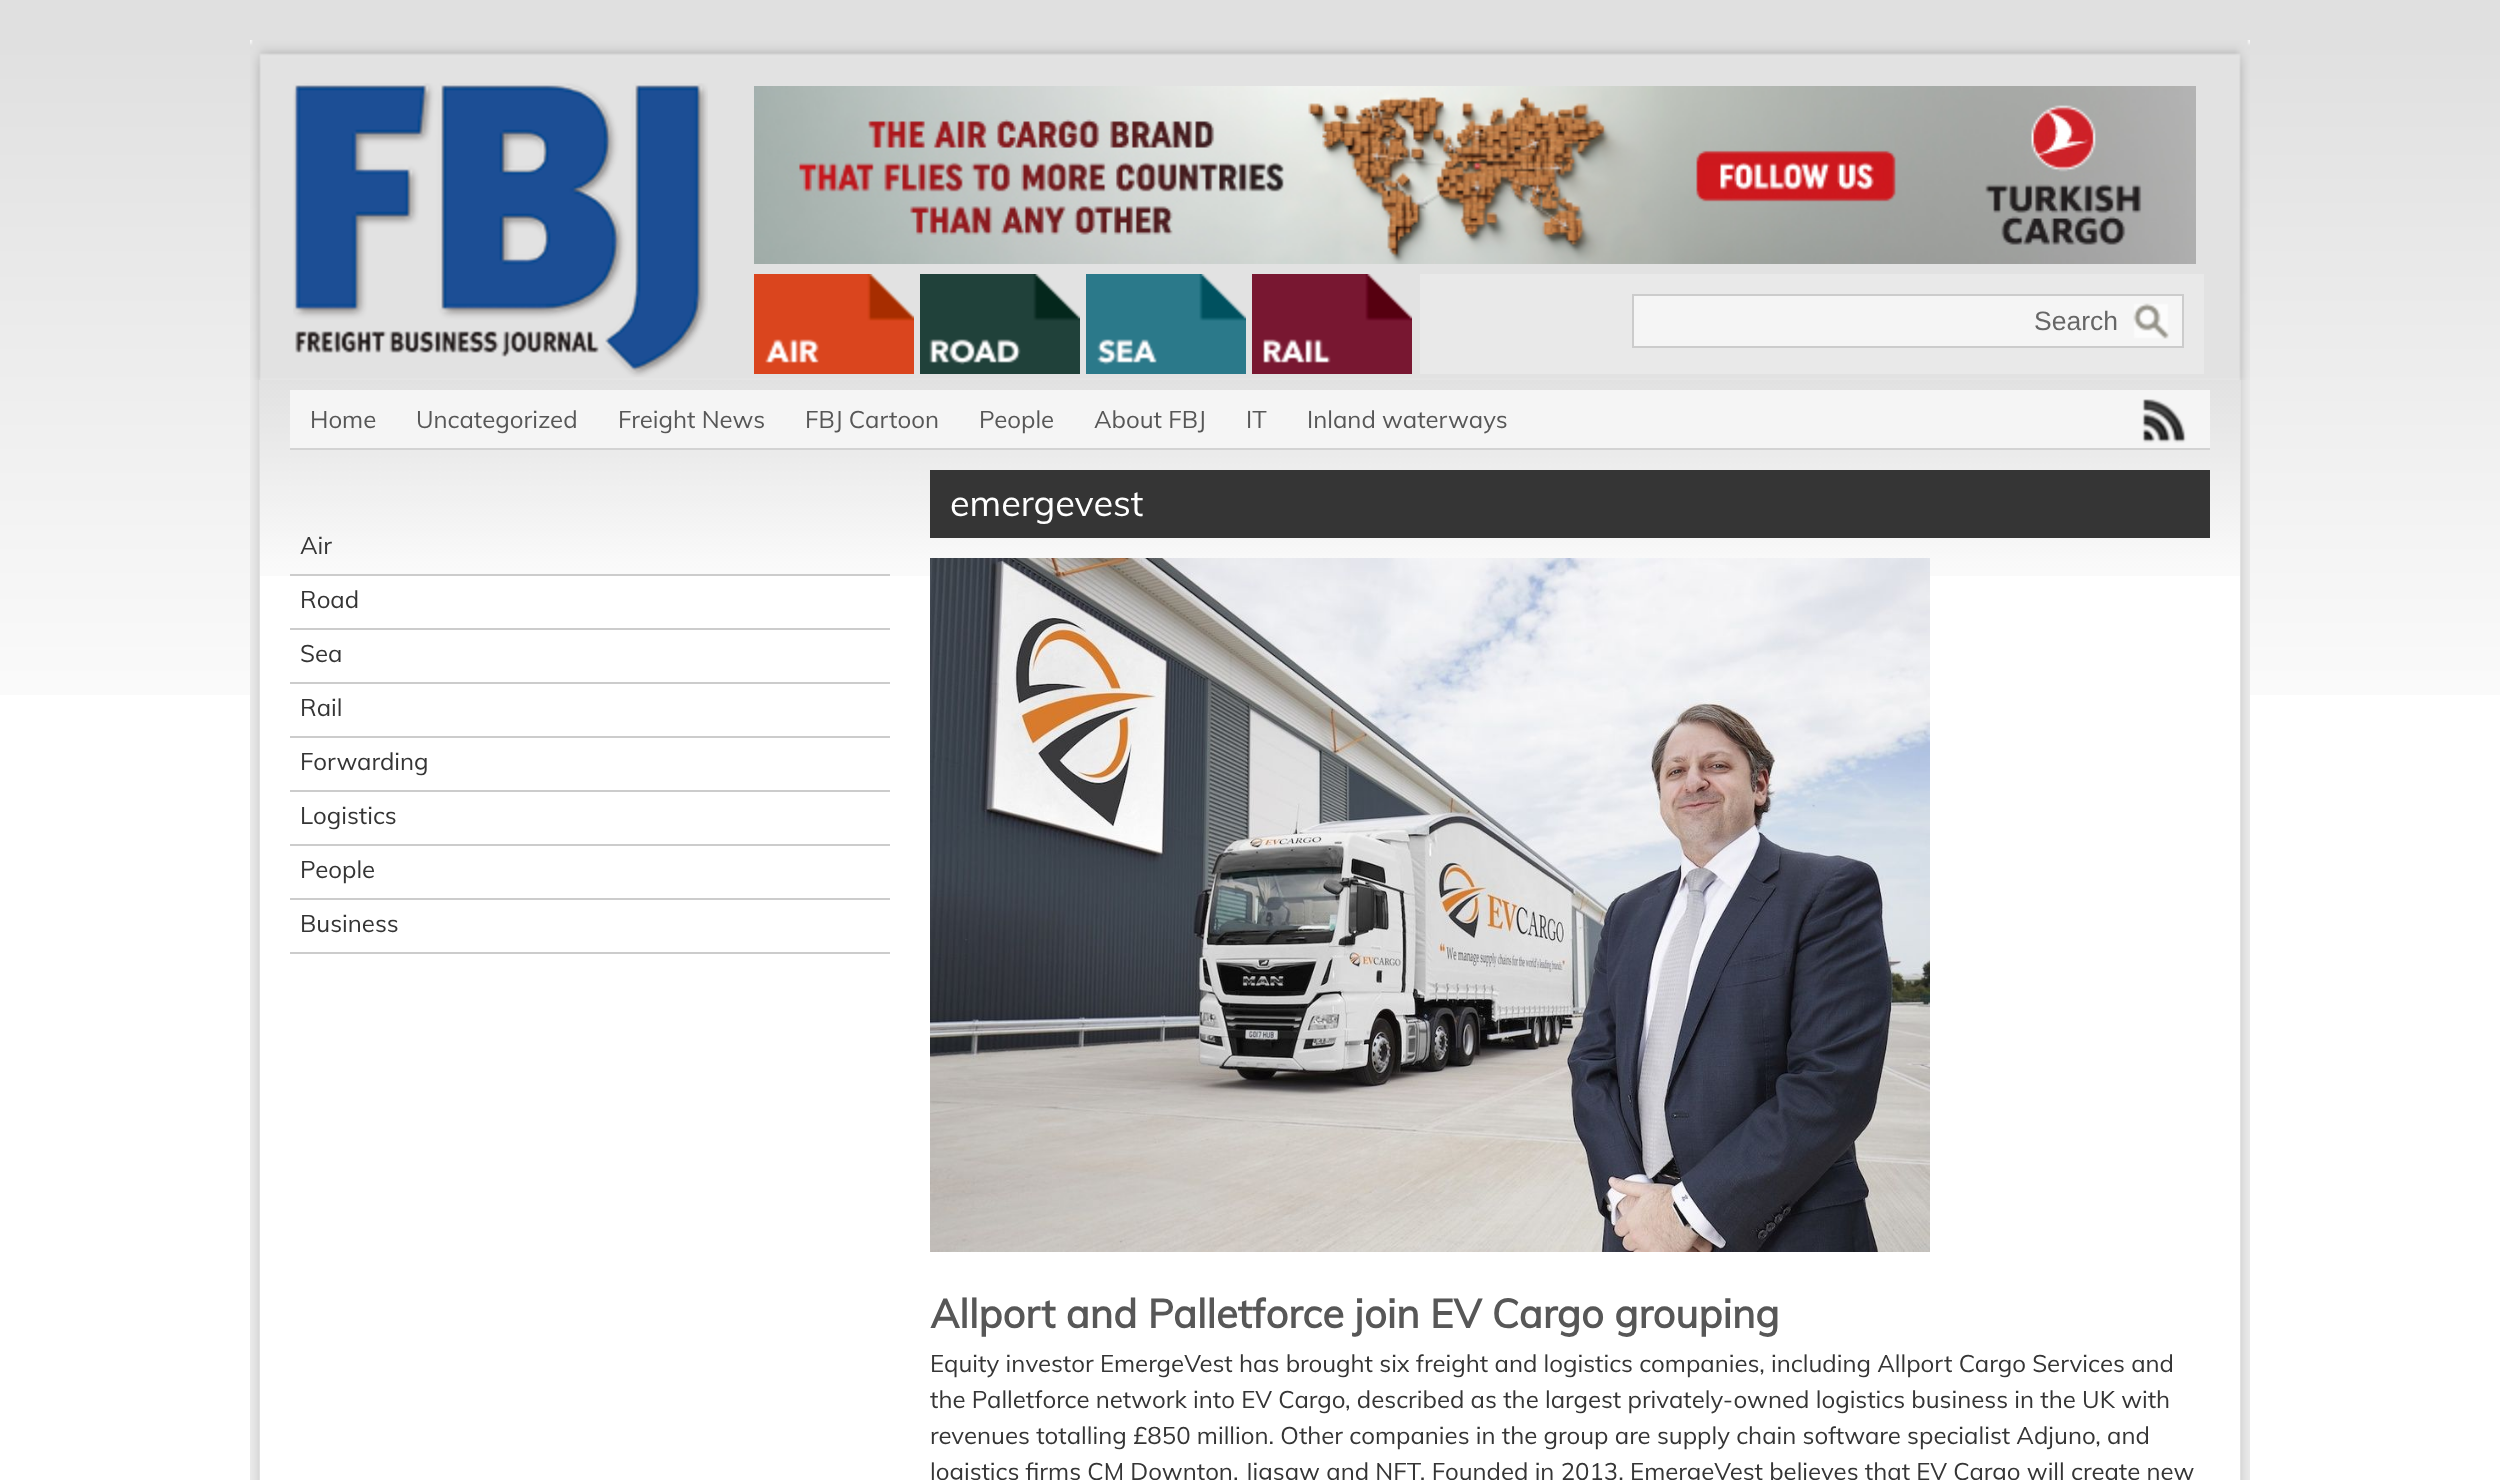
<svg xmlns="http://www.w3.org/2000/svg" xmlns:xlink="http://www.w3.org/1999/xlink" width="2500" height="1480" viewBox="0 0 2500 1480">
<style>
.cls-1{font:26.5px Liberation Sans;fill:#666666}
.cls-2{font:24px Muli;fill:#575757}
.cls-3{font:24px Muli;fill:#353535}
.cls-4{font:36px Muli;fill:#ffffff}
.cls-5{font:bold 40px Muli;fill:#575757}
</style>
<rect width="100%" height="100%" fill="#ffffff"/>
<image xlink:href="image0.png" x="0" y="0" width="2500" height="695"/>
<image xlink:href="image1.png" x="250" y="40" width="2000" height="340"/>
<image xlink:href="image2.png" x="293" y="83" width="415" height="294"/>
<image xlink:href="image3.png" x="754" y="86" width="1442" height="178"/>
<image xlink:href="image4.png" x="754" y="274" width="160" height="100"/>
<image xlink:href="image5.png" x="920" y="274" width="160" height="100"/>
<image xlink:href="image6.png" x="1086" y="274" width="160" height="100"/>
<image xlink:href="image7.png" x="1252" y="274" width="160" height="100"/>
<rect fill="#e9e9e9" x="1420" y="274" width="784" height="100"/>
<rect fill="#f5f5f5" x="1634" y="296" width="548" height="50"/>
<image xlink:href="image8.png" x="2133" y="303" width="36" height="36"/>
<rect fill="none" stroke="#cccccc" stroke-width="2" x="1633" y="295" width="550" height="52"/>
<image xlink:href="image9.png" x="250" y="380" width="2000" height="1100"/>
<rect fill="#ffffff" x="260" y="576" width="1980" height="904"/>
<image xlink:href="image10.png" x="260" y="380" width="1980" height="196"/>
<rect fill="#f5f5f5" x="290" y="390" width="1920" height="58"/>
<rect fill="#d3d3d3" x="290" y="448" width="1920" height="2"/>
<image xlink:href="image11.png" x="2142" y="399" width="45" height="44"/>
<rect fill="#cccccc" x="290" y="574" width="600" height="2"/>
<rect fill="#cccccc" x="290" y="628" width="600" height="2"/>
<rect fill="#cccccc" x="290" y="682" width="600" height="2"/>
<rect fill="#cccccc" x="290" y="736" width="600" height="2"/>
<rect fill="#cccccc" x="290" y="790" width="600" height="2"/>
<rect fill="#cccccc" x="290" y="844" width="600" height="2"/>
<rect fill="#cccccc" x="290" y="898" width="600" height="2"/>
<rect fill="#cccccc" x="290" y="952" width="600" height="2"/>
<rect fill="#353535" x="930" y="470" width="1280" height="68"/>
<image xlink:href="image12.png" x="930" y="558" width="1000" height="694"/>
<text class="cls-1" x="2034" y="330">Search</text>
<text class="cls-2" x="310" y="428">Home</text>
<text class="cls-2" x="416" y="428">Uncategorized</text>
<text class="cls-2" x="618" y="428">Freight News</text>
<text class="cls-2" x="805" y="428">FBJ Cartoon</text>
<text class="cls-2" x="979" y="428">People</text>
<text class="cls-2" x="1094" y="428">About FBJ</text>
<text class="cls-2" x="1246" y="428">IT</text>
<text class="cls-2" x="1307" y="428">Inland waterways</text>
<text class="cls-3" x="300" y="554">Air</text>
<text class="cls-3" x="300" y="608">Road</text>
<text class="cls-3" x="300" y="662">Sea</text>
<text class="cls-3" x="300" y="716">Rail</text>
<text class="cls-3" x="300" y="770">Forwarding</text>
<text class="cls-3" x="300" y="824">Logistics</text>
<text class="cls-3" x="300" y="878">People</text>
<text class="cls-3" x="300" y="932">Business</text>
<text class="cls-4" x="950" y="516">emergevest</text>
<text class="cls-5" x="930" y="1328">Allport and Palletforce join EV Cargo grouping</text>
<text class="cls-3"><tspan x="930" y="1372">Equity investor EmergeVest has brought six freight and logistics companies, including Allport Cargo Services and</tspan><tspan x="930" y="1408">the Palletforce network into EV Cargo, described as the largest privately-owned logistics business in the UK with</tspan><tspan x="930" y="1444">revenues totalling £850 million. Other companies in the group are supply chain software specialist Adjuno, and</tspan><tspan x="930" y="1480">logistics firms CM Downton, Jigsaw and NFT. Founded in 2013, EmergeVest believes that EV Cargo will create new</tspan></text>
</svg>
